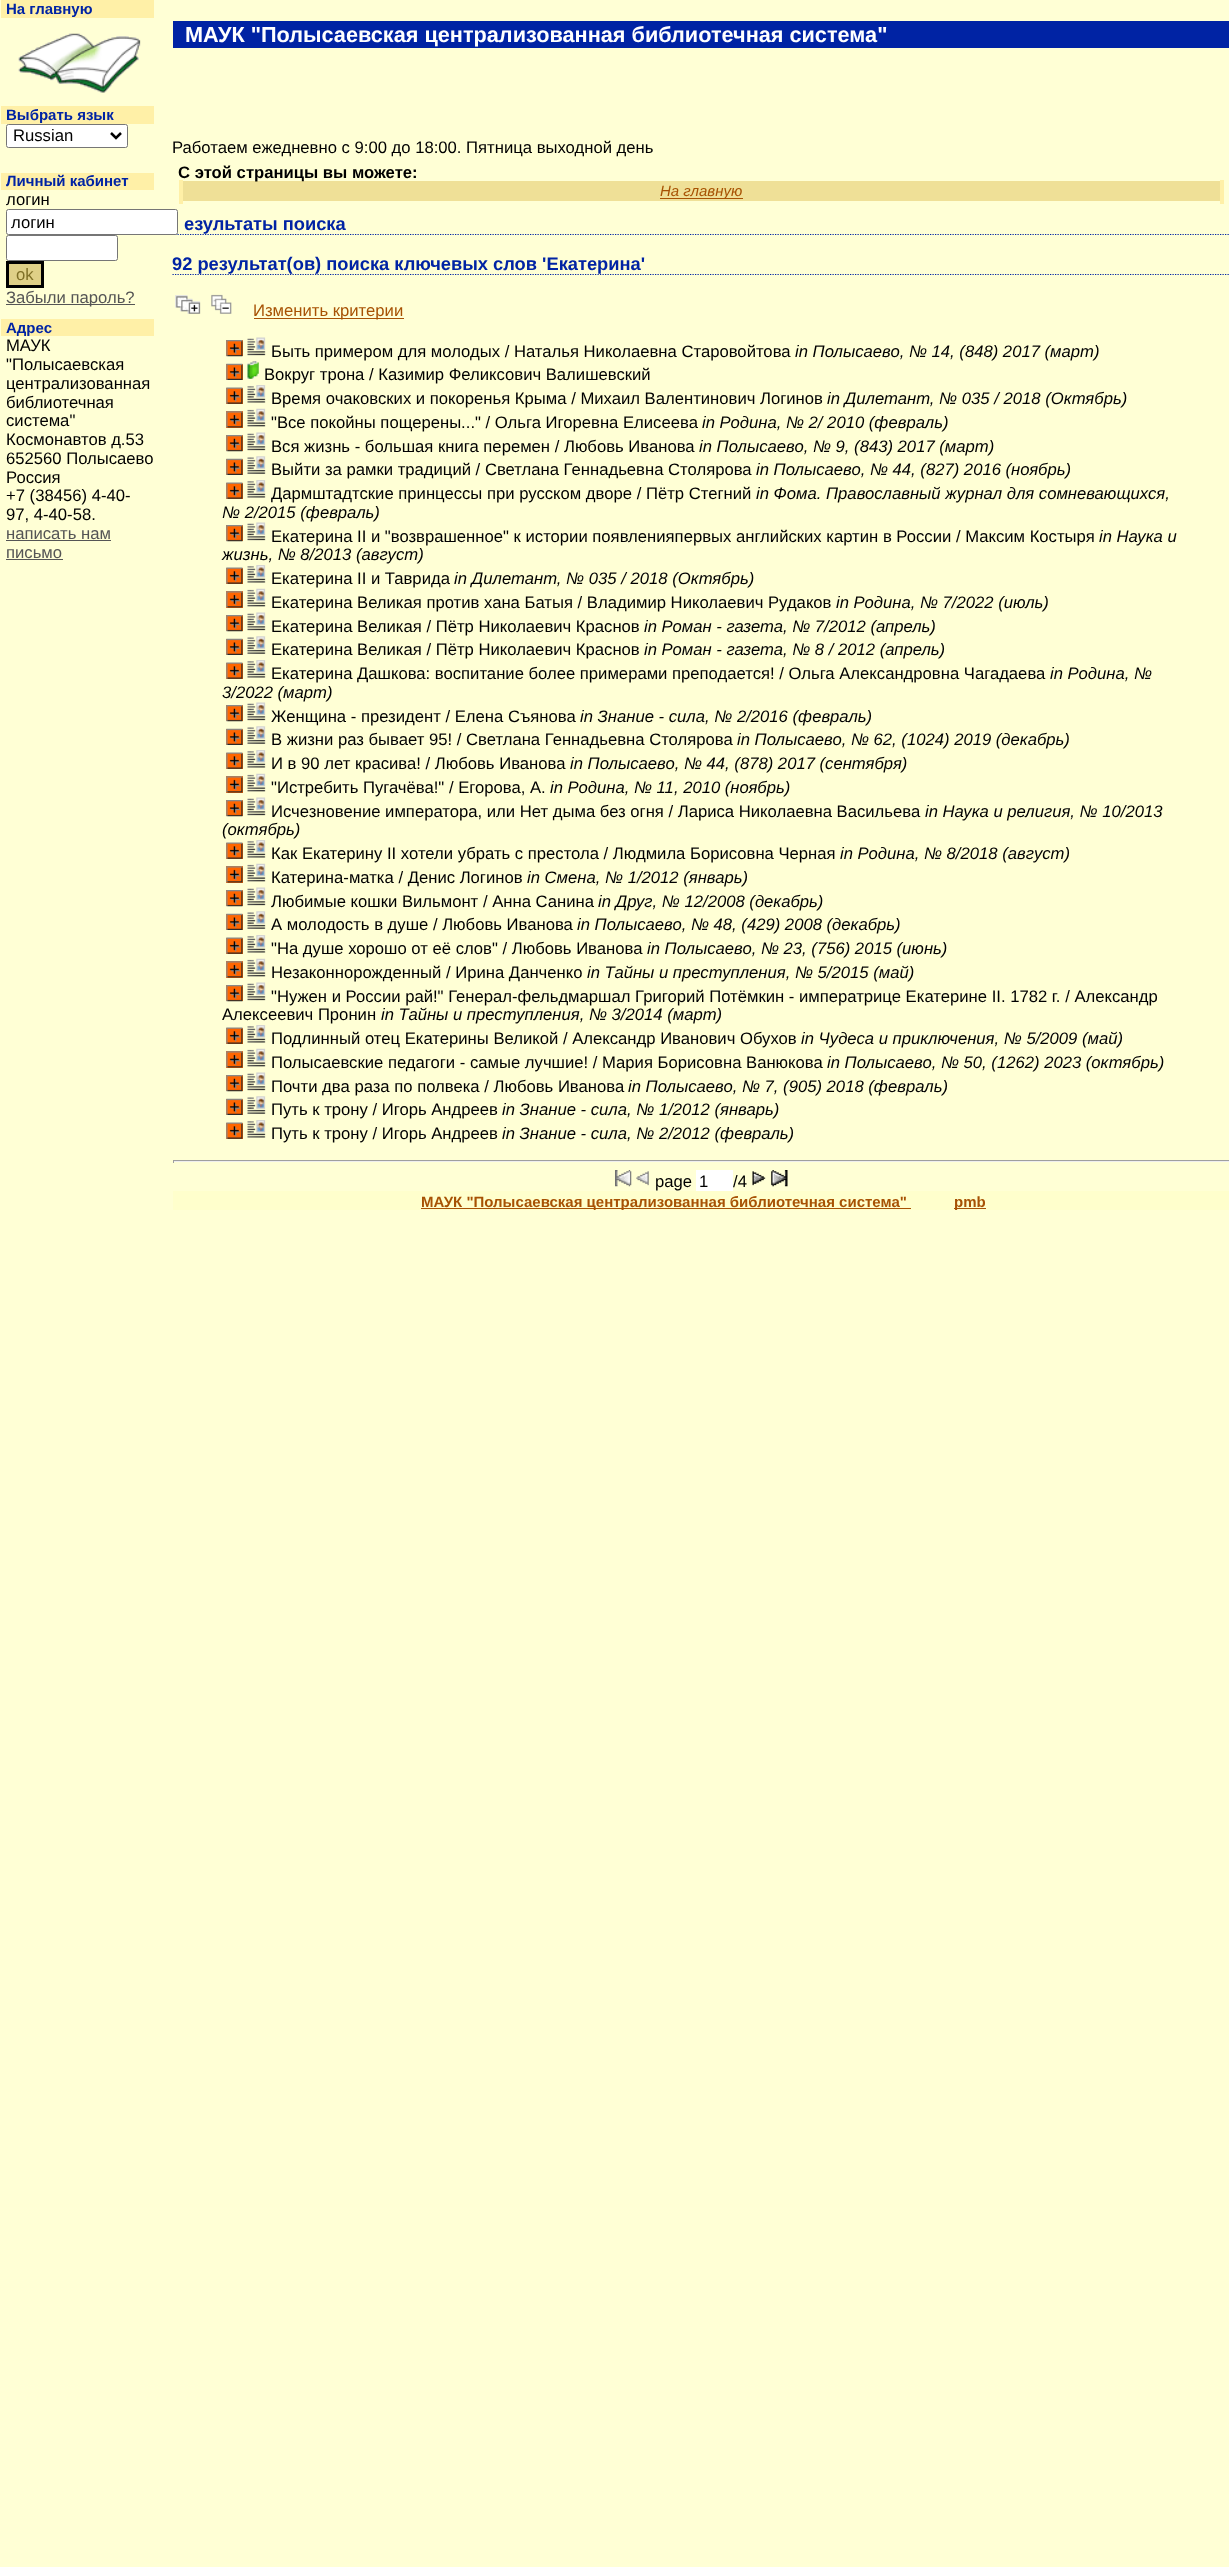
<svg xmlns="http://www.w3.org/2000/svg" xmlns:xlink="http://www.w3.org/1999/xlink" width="1229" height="2567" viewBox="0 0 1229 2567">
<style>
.cls-1{font:bold 15px Liberation Sans;fill:#0023a4}
.cls-2{font:16.67px Liberation Sans;fill:#000000}
.cls-3{font:16.67px Liberation Sans;fill:#7f7027}
.cls-4{font:16.67px Liberation Sans;fill:#555555}
.cls-5{font:bold 21.7px Liberation Sans;fill:#ffffff}
.cls-6{font:bold 16.67px Liberation Sans;fill:#000000}
.cls-7{font:italic 15px Liberation Sans;fill:#a75204}
.cls-8{font:bold 18.3px Liberation Sans;fill:#0023a4}
.cls-9{font:16.67px Liberation Sans;fill:#a75204}
.cls-10{font:italic 16.67px Liberation Sans;fill:#000000}
.cls-11{font:bold 15px Liberation Sans;fill:#a75204}
</style>
<rect width="100%" height="100%" fill="#ffffd5"/>
<rect fill="#fff0a7" x="1" y="0" width="153" height="18"/>
<image xlink:href="image0.png" x="18" y="33" width="123" height="60"/>
<rect fill="#fff0a7" x="1" y="106" width="153" height="18"/>
<rect fill="#ffffff" stroke="#767676" x="6.5" y="124.5" width="121" height="23" rx="2"/>
<path fill="none" stroke="#000000" stroke-width="2.5" d="M111 133L116 138L121 133"/>
<rect fill="#fff0a7" x="1" y="173" width="153" height="17"/>
<path fill="none" stroke="#0023a4" stroke-width="1.2" stroke-dasharray="1.25 1.25" d="M172.5 234.5H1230"/>
<rect fill="#ffffff" stroke="#767676" x="6.5" y="209.5" width="171" height="25" rx="2"/>
<rect fill="#ffffff" stroke="#767676" x="6.5" y="235.5" width="111" height="25" rx="2"/>
<rect fill="#dfd087" stroke="#000000" stroke-width="3" x="7.5" y="262.5" width="35" height="24"/>
<rect fill="#555555" x="6" y="304" width="129" height="1"/>
<rect fill="#fff0a7" x="1" y="319" width="153" height="17"/>
<rect fill="#555555" x="6" y="540" width="105" height="1"/>
<rect fill="#555555" x="6" y="559" width="57" height="1"/>
<rect fill="#0023a4" x="173" y="21" width="1056" height="27"/>
<rect fill="#efe097" x="183" y="181" width="1037" height="20"/>
<rect fill="#fff0a7" x="1220" y="180" width="4" height="24"/>
<rect fill="#fff0a7" x="179" y="180" width="4" height="24"/>
<rect fill="#a75204" x="660" y="198" width="83" height="1"/>
<path fill="none" stroke="#0023a4" stroke-width="1.2" stroke-dasharray="1.25 1.25" d="M172.5 274.5H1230"/>
<image xlink:href="image1.png" x="175" y="295" width="26" height="19"/>
<image xlink:href="image2.png" x="211" y="294" width="21" height="20"/>
<rect fill="#a75204" x="254" y="318" width="150" height="1"/>
<rect fill="#ff6600" x="226" y="340" width="17" height="16"/>
<image xlink:href="image3.png" x="247" y="337" width="19" height="19"/>
<image xlink:href="image4.png" x="226" y="340" width="17" height="17"/>
<rect fill="#ff6600" x="226" y="364" width="17" height="16"/>
<image xlink:href="image5.png" x="226" y="363" width="17" height="17"/>
<image xlink:href="image6.png" x="246" y="361" width="13" height="18"/>
<rect fill="#ff6600" x="226" y="388" width="17" height="16"/>
<image xlink:href="image7.png" x="226" y="387" width="17" height="17"/>
<image xlink:href="image8.png" x="247" y="385" width="19" height="18"/>
<rect fill="#ff6600" x="226" y="411" width="17" height="17"/>
<image xlink:href="image9.png" x="247" y="408" width="19" height="19"/>
<image xlink:href="image10.png" x="226" y="411" width="17" height="17"/>
<rect fill="#ff6600" x="226" y="435" width="17" height="16"/>
<image xlink:href="image3.png" x="247" y="432" width="19" height="19"/>
<image xlink:href="image4.png" x="226" y="435" width="17" height="17"/>
<rect fill="#ff6600" x="226" y="459" width="17" height="16"/>
<image xlink:href="image5.png" x="226" y="458" width="17" height="17"/>
<image xlink:href="image11.png" x="247" y="456" width="19" height="18"/>
<rect fill="#ff6600" x="226" y="483" width="17" height="16"/>
<image xlink:href="image7.png" x="226" y="482" width="17" height="17"/>
<image xlink:href="image8.png" x="247" y="480" width="19" height="18"/>
<rect fill="#ff6600" x="226" y="525" width="17" height="16"/>
<image xlink:href="image3.png" x="247" y="522" width="19" height="19"/>
<image xlink:href="image4.png" x="226" y="525" width="17" height="17"/>
<rect fill="#ff6600" x="226" y="568" width="17" height="16"/>
<image xlink:href="image7.png" x="226" y="567" width="17" height="17"/>
<image xlink:href="image8.png" x="247" y="565" width="19" height="18"/>
<rect fill="#ff6600" x="226" y="591" width="17" height="17"/>
<image xlink:href="image12.png" x="247" y="588" width="19" height="19"/>
<image xlink:href="image10.png" x="226" y="591" width="17" height="17"/>
<rect fill="#ff6600" x="226" y="615" width="17" height="16"/>
<image xlink:href="image3.png" x="247" y="612" width="19" height="19"/>
<image xlink:href="image4.png" x="226" y="615" width="17" height="17"/>
<rect fill="#ff6600" x="226" y="639" width="17" height="16"/>
<image xlink:href="image5.png" x="226" y="638" width="17" height="17"/>
<image xlink:href="image11.png" x="247" y="636" width="19" height="18"/>
<rect fill="#ff6600" x="226" y="663" width="17" height="16"/>
<image xlink:href="image7.png" x="226" y="662" width="17" height="17"/>
<image xlink:href="image8.png" x="247" y="660" width="19" height="18"/>
<rect fill="#ff6600" x="226" y="705" width="17" height="16"/>
<image xlink:href="image3.png" x="247" y="702" width="19" height="19"/>
<image xlink:href="image4.png" x="226" y="705" width="17" height="17"/>
<rect fill="#ff6600" x="226" y="729" width="17" height="16"/>
<image xlink:href="image5.png" x="226" y="728" width="17" height="17"/>
<image xlink:href="image11.png" x="247" y="726" width="19" height="18"/>
<rect fill="#ff6600" x="226" y="753" width="17" height="16"/>
<image xlink:href="image7.png" x="226" y="752" width="17" height="17"/>
<image xlink:href="image8.png" x="247" y="750" width="19" height="18"/>
<rect fill="#ff6600" x="226" y="776" width="17" height="17"/>
<image xlink:href="image13.png" x="247" y="773" width="19" height="19"/>
<image xlink:href="image10.png" x="226" y="776" width="17" height="17"/>
<rect fill="#ff6600" x="226" y="800" width="17" height="16"/>
<image xlink:href="image3.png" x="247" y="797" width="19" height="19"/>
<image xlink:href="image4.png" x="226" y="800" width="17" height="17"/>
<rect fill="#ff6600" x="226" y="843" width="17" height="16"/>
<image xlink:href="image7.png" x="226" y="842" width="17" height="17"/>
<image xlink:href="image8.png" x="247" y="840" width="19" height="18"/>
<rect fill="#ff6600" x="226" y="866" width="17" height="17"/>
<image xlink:href="image9.png" x="247" y="863" width="19" height="19"/>
<image xlink:href="image10.png" x="226" y="866" width="17" height="17"/>
<rect fill="#ff6600" x="226" y="890" width="17" height="16"/>
<image xlink:href="image3.png" x="247" y="887" width="19" height="19"/>
<image xlink:href="image4.png" x="226" y="890" width="17" height="17"/>
<rect fill="#ff6600" x="226" y="914" width="17" height="16"/>
<image xlink:href="image5.png" x="226" y="913" width="17" height="17"/>
<image xlink:href="image11.png" x="247" y="911" width="19" height="18"/>
<rect fill="#ff6600" x="226" y="938" width="17" height="16"/>
<image xlink:href="image7.png" x="226" y="937" width="17" height="17"/>
<image xlink:href="image8.png" x="247" y="935" width="19" height="18"/>
<rect fill="#ff6600" x="226" y="961" width="17" height="17"/>
<image xlink:href="image9.png" x="247" y="958" width="19" height="19"/>
<image xlink:href="image10.png" x="226" y="961" width="17" height="17"/>
<rect fill="#ff6600" x="226" y="985" width="17" height="16"/>
<image xlink:href="image3.png" x="247" y="982" width="19" height="19"/>
<image xlink:href="image4.png" x="226" y="985" width="17" height="17"/>
<rect fill="#ff6600" x="226" y="1028" width="17" height="16"/>
<image xlink:href="image7.png" x="226" y="1027" width="17" height="17"/>
<image xlink:href="image14.png" x="247" y="1025" width="19" height="18"/>
<rect fill="#ff6600" x="226" y="1051" width="17" height="17"/>
<image xlink:href="image9.png" x="247" y="1048" width="19" height="19"/>
<image xlink:href="image10.png" x="226" y="1051" width="17" height="17"/>
<rect fill="#ff6600" x="226" y="1075" width="17" height="16"/>
<image xlink:href="image3.png" x="247" y="1072" width="19" height="19"/>
<image xlink:href="image4.png" x="226" y="1075" width="17" height="17"/>
<rect fill="#ff6600" x="226" y="1099" width="17" height="16"/>
<image xlink:href="image5.png" x="226" y="1098" width="17" height="17"/>
<image xlink:href="image11.png" x="247" y="1096" width="19" height="18"/>
<rect fill="#ff6600" x="226" y="1123" width="17" height="16"/>
<image xlink:href="image7.png" x="226" y="1122" width="17" height="17"/>
<image xlink:href="image8.png" x="247" y="1120" width="19" height="18"/>
<rect fill="#9f9f9f" x="173" y="1160" width="1056" height="1"/>
<rect fill="#eeeeee" x="173" y="1161" width="1056" height="1"/>
<rect fill="#9f9f9f" x="173" y="1160" width="1" height="3"/>
<image xlink:href="image15.png" x="615" y="1170" width="17" height="17"/>
<image xlink:href="image16.png" x="636" y="1171" width="13" height="15"/>
<rect fill="#ffffff" x="696" y="1170" width="37" height="21"/>
<image xlink:href="image17.png" x="752" y="1171" width="14" height="15"/>
<image xlink:href="image18.png" x="771" y="1170" width="17" height="17"/>
<rect fill="#ffffcc" x="173" y="1191" width="1056" height="19"/>
<rect fill="#a75204" x="421" y="1208" width="490" height="1"/>
<rect fill="#a75204" x="954" y="1208" width="32" height="1"/>
<text class="cls-1" x="6" y="14">На главную</text>
<text class="cls-1" x="6" y="120">Выбрать язык</text>
<text class="cls-2" x="13" y="141">Russian</text>
<text class="cls-1" x="6" y="186">Личный кабинет</text>
<text class="cls-2" x="6" y="205">логин</text>
<text class="cls-2" x="11" y="228">логин</text>
<text class="cls-3" x="16" y="280">ok</text>
<text class="cls-4" x="6" y="303">Забыли пароль?</text>
<text class="cls-1" x="6" y="333">Адрес</text>
<text class="cls-2"><tspan x="6" y="351">МАУК</tspan><tspan x="6" y="370">"Полысаевская</tspan><tspan x="6" y="389">централизованная</tspan><tspan x="6" y="408">библиотечная</tspan><tspan x="6" y="426">система"</tspan><tspan x="6" y="445">Космонавтов д.53</tspan><tspan x="6" y="464">652560 Полысаево</tspan><tspan x="6" y="483">Россия</tspan><tspan x="6" y="501">+7 (38456) 4-40-</tspan><tspan x="6" y="520">97, 4-40-58.</tspan></text>
<text class="cls-4"><tspan x="6" y="539">написать нам</tspan><tspan x="6" y="558">письмо</tspan></text>
<text class="cls-5" x="185" y="42">МАУК "Полысаевская централизованная библиотечная система"</text>
<text class="cls-2" x="172" y="153">Работаем ежедневно с 9:00 до 18:00. Пятница выходной день</text>
<text class="cls-6" x="178" y="178">С этой страницы вы можете:</text>
<text class="cls-7" x="660" y="196">На главную</text>
<text class="cls-8" x="184" y="230">езультаты поиска</text>
<text class="cls-8" x="172" y="270">92 результат(ов) поиска ключевых слов 'Екатерина'</text>
<text class="cls-9" x="253" y="316">Изменить критерии</text>
<text class="cls-2" x="271" y="357">Быть примером для молодых / Наталья Николаевна Старовойтова</text>
<text class="cls-10" x="795" y="357">in Полысаево, № 14, (848) 2017 (март)</text>
<text class="cls-2" x="264" y="380">Вокруг трона / Казимир Феликсович Валишевский</text>
<text class="cls-2" x="271" y="404">Время очаковских и покоренья Крыма / Михаил Валентинович Логинов</text>
<text class="cls-10" x="827" y="404">in Дилетант, № 035 / 2018 (Октябрь)</text>
<text class="cls-2" x="271" y="428">"Все покойны пощерены..." / Ольга Игоревна Елисеева</text>
<text class="cls-10" x="702" y="428">in Родина, № 2/ 2010 (февраль)</text>
<text class="cls-2" x="271" y="452">Вся жизнь - большая книга перемен / Любовь Иванова</text>
<text class="cls-10" x="699" y="452">in Полысаево, № 9, (843) 2017 (март)</text>
<text class="cls-2" x="271" y="475">Выйти за рамки традиций / Светлана Геннадьевна Столярова</text>
<text class="cls-10" x="756" y="475">in Полысаево, № 44, (827) 2016 (ноябрь)</text>
<text class="cls-2" x="271" y="499">Дармштадтские принцессы при русском дворе / Пётр Стегний</text>
<text class="cls-10" x="756" y="499">in Фома. Православный журнал для сомневающихся,</text>
<text class="cls-10" x="222" y="518">№ 2/2015 (февраль)</text>
<text class="cls-2" x="271" y="542">Екатерина II и "возврашенное" к истории появленияпервых английских картин в России / Максим Костыря</text>
<text class="cls-10" x="1099" y="542">in Наука и</text>
<text class="cls-10" x="222" y="560">жизнь, № 8/2013 (август)</text>
<text class="cls-2" x="271" y="584">Екатерина II и Таврида</text>
<text class="cls-10" x="454" y="584">in Дилетант, № 035 / 2018 (Октябрь)</text>
<text class="cls-2" x="271" y="608">Екатерина Великая против хана Батыя / Владимир Николаевич Рудаков</text>
<text class="cls-10" x="836" y="608">in Родина, № 7/2022 (июль)</text>
<text class="cls-2" x="271" y="632">Екатерина Великая / Пётр Николаевич Краснов</text>
<text class="cls-10" x="644" y="632">in Роман - газета, № 7/2012 (апрель)</text>
<text class="cls-2" x="271" y="655">Екатерина Великая / Пётр Николаевич Краснов</text>
<text class="cls-10" x="644" y="655">in Роман - газета, № 8 / 2012 (апрель)</text>
<text class="cls-2" x="271" y="679">Екатерина Дашкова: воспитание более примерами преподается! / Ольга Александровна Чагадаева</text>
<text class="cls-10" x="1050" y="679">in Родина, №</text>
<text class="cls-10" x="222" y="698">3/2022 (март)</text>
<text class="cls-2" x="271" y="722">Женщина - президент / Елена Съянова</text>
<text class="cls-10" x="580" y="722">in Знание - сила, № 2/2016 (февраль)</text>
<text class="cls-2" x="271" y="745">В жизни раз бывает 95! / Светлана Геннадьевна Столярова</text>
<text class="cls-10" x="737" y="745">in Полысаево, № 62, (1024) 2019 (декабрь)</text>
<text class="cls-2" x="271" y="769">И в 90 лет красива! / Любовь Иванова</text>
<text class="cls-10" x="570" y="769">in Полысаево, № 44, (878) 2017 (сентября)</text>
<text class="cls-2" x="271" y="793">"Истребить Пугачёва!" / Егорова, А.</text>
<text class="cls-10" x="550" y="793">in Родина, № 11, 2010 (ноябрь)</text>
<text class="cls-2" x="271" y="817">Исчезновение императора, или Нет дыма без огня / Лариса Николаевна Васильева</text>
<text class="cls-10" x="925" y="817">in Наука и религия, № 10/2013</text>
<text class="cls-10" x="222" y="835">(октябрь)</text>
<text class="cls-2" x="271" y="859">Как Екатерину II хотели убрать с престола / Людмила Борисовна Черная</text>
<text class="cls-10" x="840" y="859">in Родина, № 8/2018 (август)</text>
<text class="cls-2" x="271" y="883">Катерина-матка / Денис Логинов</text>
<text class="cls-10" x="527" y="883">in Смена, № 1/2012 (январь)</text>
<text class="cls-2" x="271" y="907">Любимые кошки Вильмонт / Анна Санина</text>
<text class="cls-10" x="598" y="907">in Друг, № 12/2008 (декабрь)</text>
<text class="cls-2" x="271" y="930">А молодость в душе / Любовь Иванова</text>
<text class="cls-10" x="577" y="930">in Полысаево, № 48, (429) 2008 (декабрь)</text>
<text class="cls-2" x="271" y="954">"На душе хорошо от её слов" / Любовь Иванова</text>
<text class="cls-10" x="647" y="954">in Полысаево, № 23, (756) 2015 (июнь)</text>
<text class="cls-2" x="271" y="978">Незаконнорожденный / Ирина Данченко</text>
<text class="cls-10" x="587" y="978">in Тайны и преступления, № 5/2015 (май)</text>
<text class="cls-2" x="271" y="1002">"Нужен и России рай!" Генерал-фельдмаршал Григорий Потёмкин - императрице Екатерине II. 1782 г. / Александр</text>
<text class="cls-2" x="222" y="1020">Алексеевич Пронин</text>
<text class="cls-10" x="381" y="1020">in Тайны и преступления, № 3/2014 (март)</text>
<text class="cls-2" x="271" y="1044">Подлинный отец Екатерины Великой / Александр Иванович Обухов</text>
<text class="cls-10" x="801" y="1044">in Чудеса и приключения, № 5/2009 (май)</text>
<text class="cls-2" x="271" y="1068">Полысаевские педагоги - самые лучшие! / Мария Борисовна Ванюкова</text>
<text class="cls-10" x="827" y="1068">in Полысаево, № 50, (1262) 2023 (октябрь)</text>
<text class="cls-2" x="271" y="1092">Почти два раза по полвека / Любовь Иванова</text>
<text class="cls-10" x="628" y="1092">in Полысаево, № 7, (905) 2018 (февраль)</text>
<text class="cls-2" x="271" y="1115">Путь к трону / Игорь Андреев</text>
<text class="cls-10" x="502" y="1115">in Знание - сила, № 1/2012 (январь)</text>
<text class="cls-2" x="271" y="1139">Путь к трону / Игорь Андреев</text>
<text class="cls-10" x="502" y="1139">in Знание - сила, № 2/2012 (февраль)</text>
<text class="cls-2" x="655" y="1187">page</text>
<text class="cls-2" x="699" y="1187">1</text>
<text class="cls-2" x="733" y="1187">/4</text>
<text class="cls-11" x="421" y="1207">МАУК "Полысаевская централизованная библиотечная система"</text>
<text class="cls-11" x="954" y="1207">pmb</text>
</svg>
